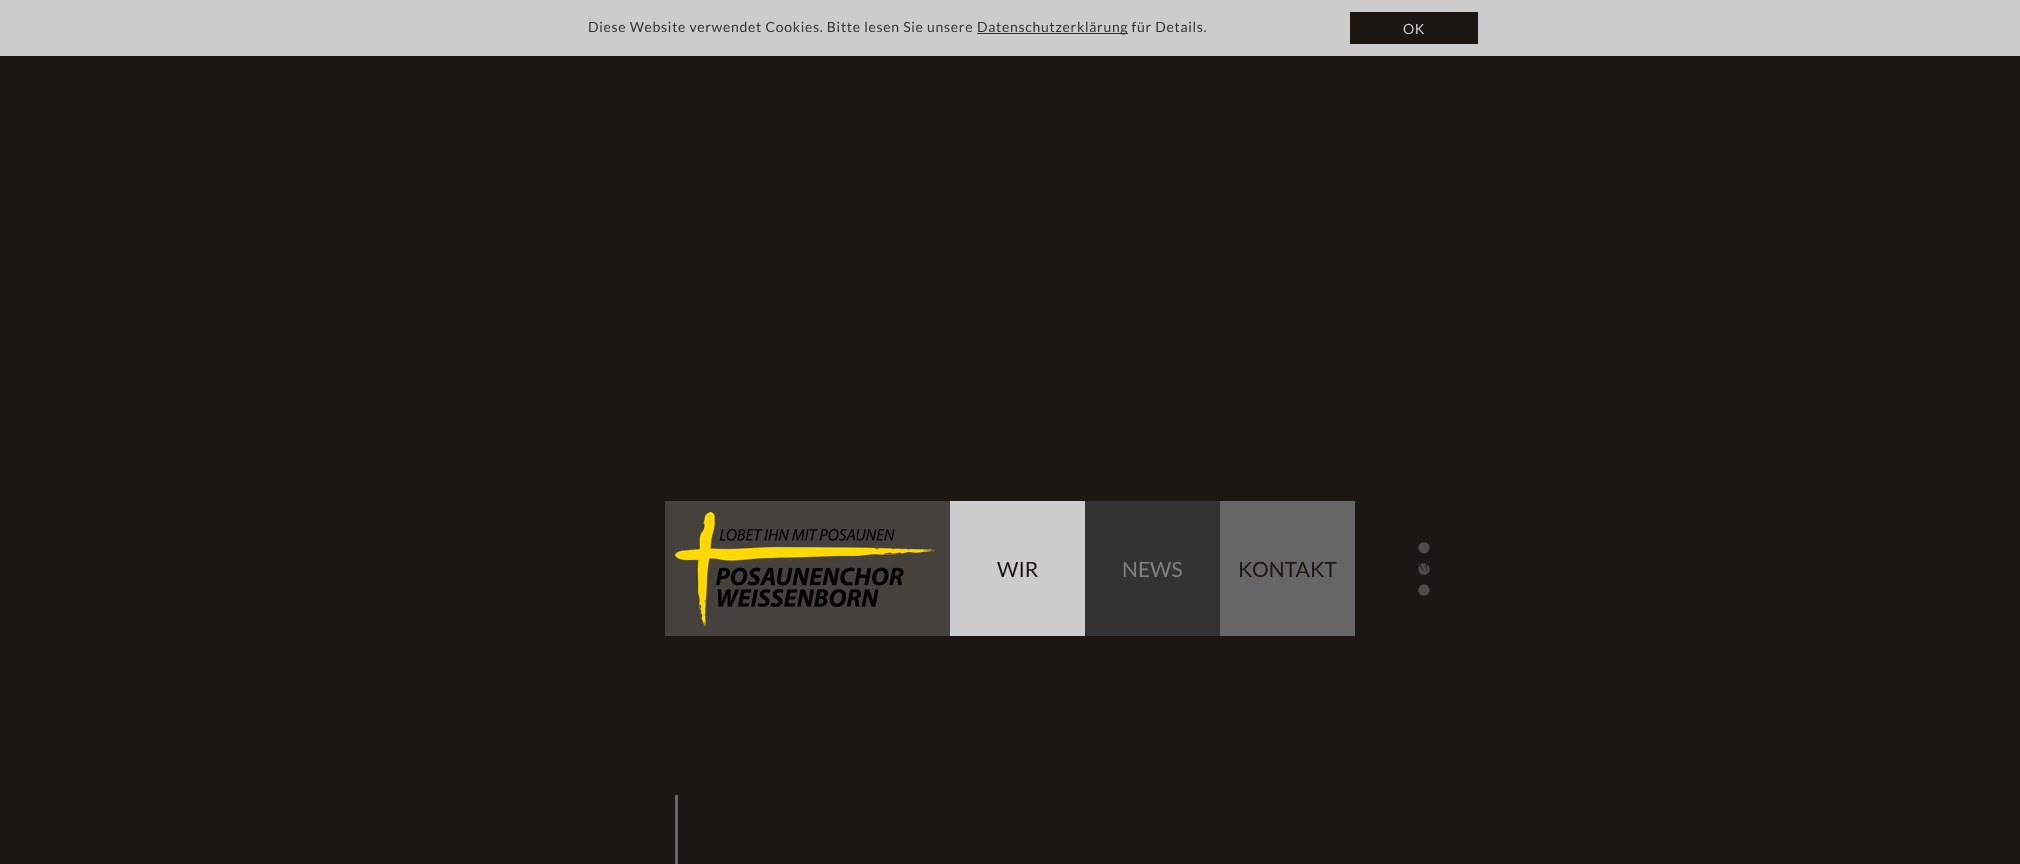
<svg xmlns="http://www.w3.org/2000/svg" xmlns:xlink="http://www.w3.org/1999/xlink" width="2020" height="864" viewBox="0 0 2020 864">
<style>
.cls-1{font:14px Lato;letter-spacing:0.7px;fill:#333333}
.cls-2{font:14px Lato;letter-spacing:0.7px;fill:#cccccc}
.cls-3{font:21px Lato;fill:#1d1713}
.cls-4{font:21px Lato;fill:#808080}
.cls-5{font:12px Lustria;fill:#2b2623}
</style>
<rect width="100%" height="100%" fill="#1d1713"/>
<rect fill="#cccccc" x="0" y="0" width="2020" height="56"/>
<rect fill="#333333" x="977" y="33" width="151" height="1"/>
<rect fill="#1d1713" x="1350" y="12" width="128" height="32"/>
<rect fill="#46413d" x="665" y="501" width="285" height="135"/>
<image xlink:href="image0.png" x="675" y="512" width="260" height="115"/>
<rect fill="#cccccc" x="950" y="501" width="135" height="135"/>
<rect fill="#333333" x="1085" y="501" width="135" height="135"/>
<rect fill="#666666" x="1220" y="501" width="135" height="135"/>
<image xlink:href="image1.png" x="1418" y="542" width="12" height="54"/>
<rect fill="#666666" x="675" y="795" width="3" height="69"/>
<text class="cls-1" x="588" y="32">Diese Website verwendet Cookies. Bitte lesen Sie unsere</text>
<text class="cls-1" x="977" y="32">Datenschutzerklärung für Details.</text>
<text class="cls-2" x="1403" y="34">OK</text>
<text class="cls-3" x="997" y="577">WIR</text>
<text class="cls-4" x="1122" y="577">NEWS</text>
<text class="cls-3" x="1238" y="577">KONTAKT</text>
<text class="cls-5" x="1417" y="571">M</text>
</svg>
